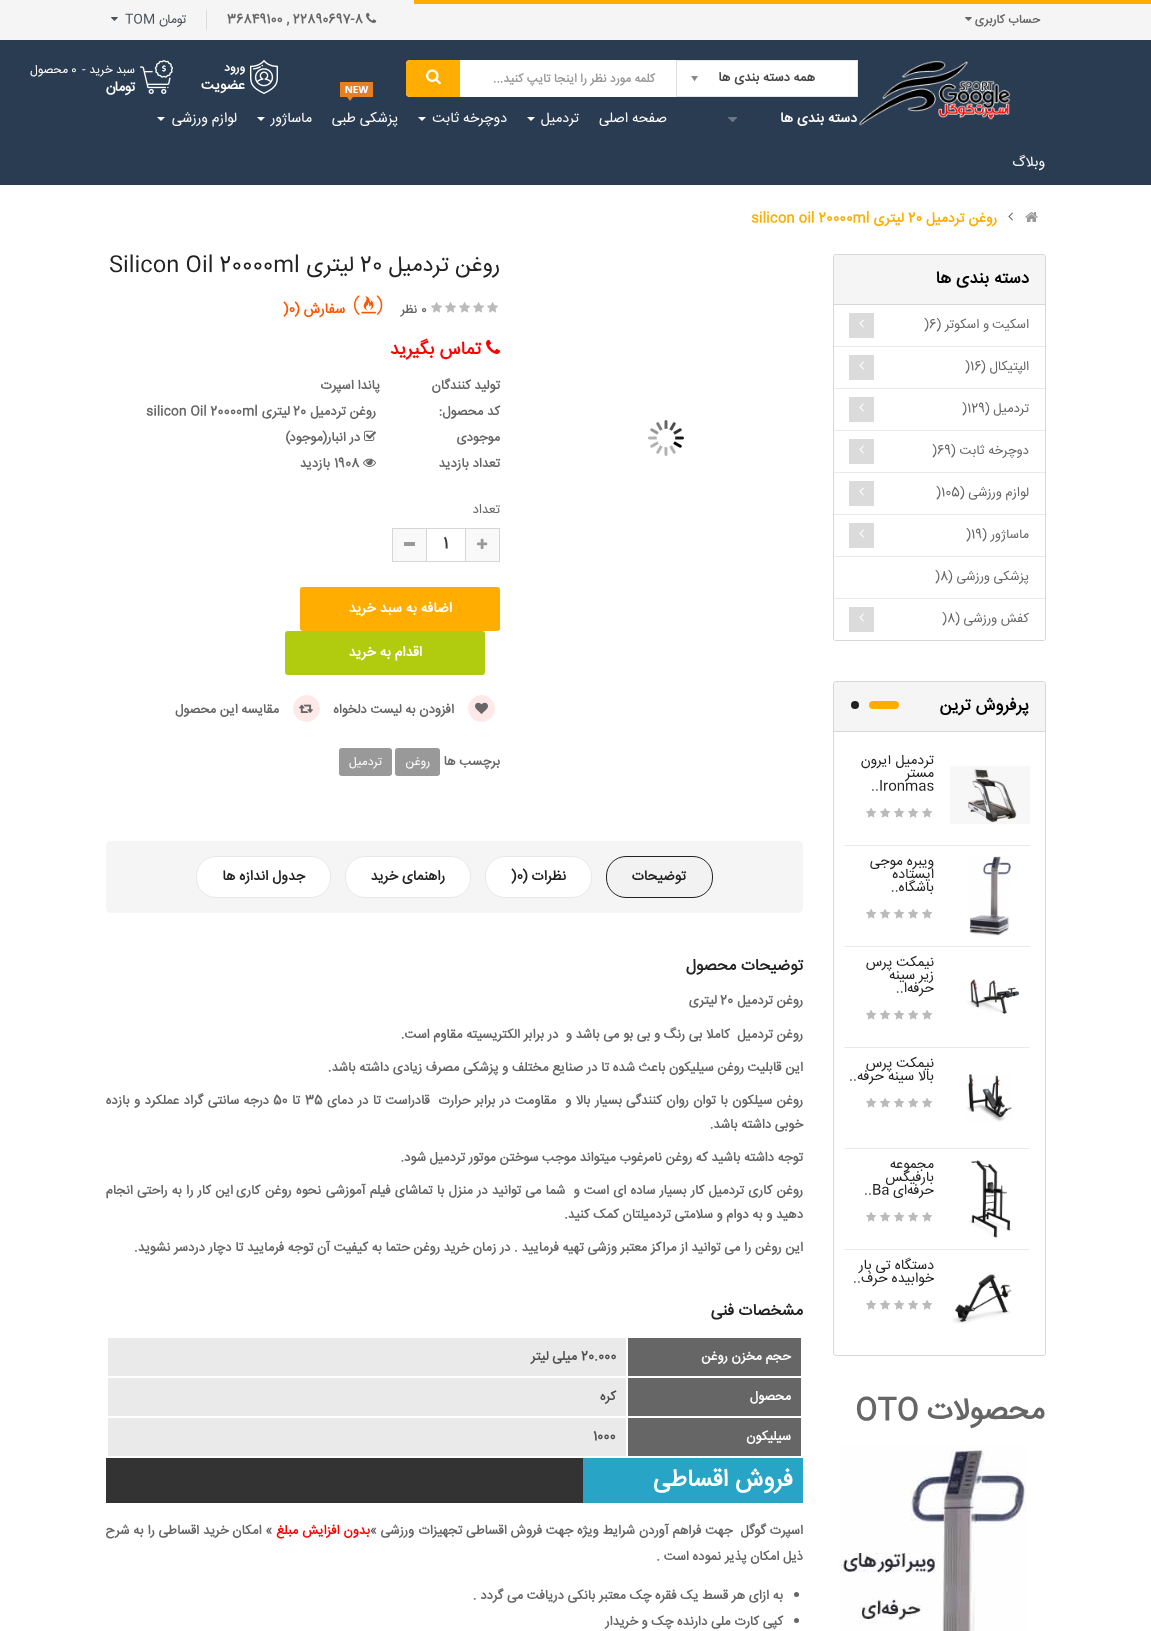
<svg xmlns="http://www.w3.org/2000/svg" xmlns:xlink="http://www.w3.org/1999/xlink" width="1151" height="1631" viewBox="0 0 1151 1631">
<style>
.cls-1{font:bold 12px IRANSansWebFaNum;direction:rtl;fill:#666666}
.cls-2{font:bold 13px IRANSansWebFaNum;fill:#666666}
.cls-3{font:13px IRANSansWebFaNum;direction:rtl;fill:#495057}
.cls-4{font:13px IRANSansWebFaNum;fill:#495057}
.cls-5{font:bold 13px IRANSansWebFaNum;direction:rtl;fill:#444444}
.cls-6{font:bold 12px IRANSansWebFaNum;direction:rtl;fill:#999999}
.cls-7{font:14px IRANSansWebFaNum;direction:rtl;fill:#ffffff}
.cls-8{font:bold 14px IRANSansWebFaNum;direction:rtl;fill:#ffffff}
.cls-9{font:bold 12px IRANSansWebFaNum;direction:rtl;fill:#ffffff}
.cls-10{font:12px IRANSansWebFaNum;fill:#ffffff}
.cls-11{font:12px IRANSansWebFaNum;direction:rtl;fill:#ffffff}
.cls-12{font:bold 14px IRANSansWebFaNum;direction:rtl;fill:#ffad00}
.cls-13{font:bold 14px IRANSansWebFaNum;fill:#ffad00}
.cls-14{font:bold 17px IRANSansWebFaNum;direction:rtl;fill:#000000}
.cls-15{font:13px IRANSansWebFaNum;direction:rtl;fill:#666666}
.cls-16{font:13px IRANSansWebFaNum;fill:#666666}
.cls-17{font:14px IRANSansWebFaNum;direction:rtl;fill:#222222}
.cls-18{font:14px IRANSansWebFaNum;fill:#222222}
.cls-19{font:bold 30px IRANSansWebFaNum;direction:rtl;fill:#666666}
.cls-20{font:bold 30px IRANSansWebFaNum;fill:#666666}
.cls-21{font:22px IRANSansWebFaNum;direction:rtl;fill:#222222}
.cls-22{font:22px IRANSansWebFaNum;fill:#222222}
.cls-23{font:bold 12px IRANSansWebFaNum;fill:#666666}
.cls-24{font:bold 14px IRANSansWebFaNum;direction:rtl;fill:#ff5500}
.cls-25{font:bold 14px IRANSansWebFaNum;fill:#ff5500}
.cls-26{font:bold 18px IRANSansWebFaNum;direction:rtl;fill:#ff0000}
.cls-27{font:bold 13px IRANSansWebFaNum;direction:rtl;fill:#666666}
.cls-28{font:bold 16px IRANSansWebFaNum;fill:#3d3d3d}
.cls-29{font:bold 14px IRANSansWebFaNum;direction:rtl;fill:#222222}
.cls-30{font:bold 14px IRANSansWebFaNum;fill:#222222}
.cls-31{font:bold 16px IRANSansWebFaNum;direction:rtl;fill:#222222}
.cls-32{font:bold 13px IRANSansWebFaNum;direction:rtl;fill:#ffffff}
.cls-33{font:bold 13px IRANSansWebFaNum;fill:#4d4d4d}
.cls-34{font:bold 13px IRANSansWebFaNum;direction:rtl;fill:#4d4d4d}
.cls-35{font:bold 24px IRANSansWebFaNum;direction:rtl;fill:#ffffff}
.cls-36{font:bold 13px IRANSansWebFaNum;direction:rtl;fill:#ff0000}
</style>
<defs>
<clipPath id="clip1"><rect x="844" y="755" width="191" height="585"/></clipPath>
</defs>
<rect width="100%" height="100%" fill="#ffffff"/>
<rect fill="#f5f5f5" x="0" y="0" width="1151" height="40"/>
<rect fill="#ffad00" x="414" y="0" width="737" height="4"/>
<rect fill="#2a3c52" x="0" y="40" width="1151" height="145"/>
<image xlink:href="image0.png" x="965" y="17" width="7" height="4"/>
<image xlink:href="image1.png" x="366" y="12" width="11" height="11"/>
<rect fill="#dcdcdc" x="206" y="10" width="1" height="20"/>
<image xlink:href="image2.png" x="111" y="17" width="7" height="4"/>
<image xlink:href="image3.png" x="859" y="60" width="152" height="66"/>
<rect fill="#ffffff" x="406" y="60" width="452" height="37" rx="4"/>
<rect fill="#ffffff" x="856" y="61" width="1" height="35"/>
<rect fill="#e5e5e5" x="676" y="60" width="182" height="1"/>
<rect fill="#e5e5e5" x="857" y="60" width="1" height="37"/>
<rect fill="#e5e5e5" x="676" y="96" width="182" height="1"/>
<rect fill="#dedede" x="676" y="60" width="1" height="37"/>
<image xlink:href="image4.png" x="691" y="76" width="7" height="6"/>
<path fill="#ffad00" d="M410 60H460V97H410C408 97 406 95 406 93V64C406 62 408 60 410 60Z"/>
<image xlink:href="image5.png" x="426" y="69" width="15" height="16"/>
<path fill="#ffffff" d="M527 117H535L531 121Z"/>
<path fill="#ffffff" d="M418 117H426L422 121Z"/>
<image xlink:href="image6.png" x="340" y="82" width="33" height="19"/>
<path fill="#ffffff" d="M257 117H265L261 121Z"/>
<path fill="#ffffff" d="M157 117H165L161 121Z"/>
<image xlink:href="image7.png" x="728" y="117" width="9" height="5"/>
<image xlink:href="image8.png" x="250" y="60" width="28" height="34"/>
<image xlink:href="image9.png" x="140" y="60" width="33" height="34"/>
<image xlink:href="image10.png" x="1025" y="212" width="13" height="10"/>
<image xlink:href="image11.png" x="1008" y="212" width="5" height="9"/>
<rect fill="none" stroke="#d7d7d7" x="833.5" y="254.5" width="212" height="386" rx="2.5"/>
<path fill="#f5f5f5" d="M836 255H1043C1044 255 1045 256 1045 257V305H834V257C834 256 835 255 836 255Z"/>
<rect fill="#d7d7d7" x="834" y="304" width="211" height="1"/>
<rect fill="#eaeaea" x="834" y="346" width="211" height="1"/>
<rect fill="#dbdbdb" x="849" y="313" width="25" height="25"/>
<image xlink:href="image12.png" x="859" y="319" width="5" height="9"/>
<rect fill="#eaeaea" x="834" y="388" width="211" height="1"/>
<rect fill="#dbdbdb" x="849" y="355" width="25" height="25"/>
<image xlink:href="image12.png" x="859" y="361" width="5" height="9"/>
<rect fill="#eaeaea" x="834" y="430" width="211" height="1"/>
<rect fill="#dbdbdb" x="849" y="397" width="25" height="25"/>
<image xlink:href="image12.png" x="859" y="403" width="5" height="9"/>
<rect fill="#eaeaea" x="834" y="472" width="211" height="1"/>
<rect fill="#dbdbdb" x="849" y="439" width="25" height="25"/>
<image xlink:href="image12.png" x="859" y="445" width="5" height="9"/>
<rect fill="#eaeaea" x="834" y="514" width="211" height="1"/>
<rect fill="#dbdbdb" x="849" y="481" width="25" height="25"/>
<image xlink:href="image12.png" x="859" y="487" width="5" height="9"/>
<rect fill="#eaeaea" x="834" y="556" width="211" height="1"/>
<rect fill="#dbdbdb" x="849" y="523" width="25" height="25"/>
<image xlink:href="image12.png" x="859" y="529" width="5" height="9"/>
<rect fill="#eaeaea" x="834" y="598" width="211" height="1"/>
<path fill="#ffffff" d="M834 599H1045V638C1045 639 1044 640 1043 640H836C835 640 834 639 834 638Z"/>
<rect fill="#dbdbdb" x="849" y="607" width="25" height="25"/>
<image xlink:href="image12.png" x="859" y="613" width="5" height="9"/>
<rect fill="none" stroke="#d7d7d7" x="833.5" y="681.5" width="212" height="674" rx="2.5"/>
<path fill="#f5f5f5" d="M836 682H1043C1044 682 1045 683 1045 684V732H834V684C834 683 835 682 836 682Z"/>
<rect fill="#d7d7d7" x="834" y="731" width="211" height="1"/>
<rect fill="#ffad00" x="869" y="701" width="30" height="8" rx="4"/>
<circle fill="#222222" cx="855" cy="705" r="4"/>
<rect fill="#eaeaea" x="844" y="845" width="186" height="1"/>
<image xlink:href="image13.png" x="950" y="766" width="80" height="58"/>
<image xlink:href="image14.png" x="922" y="808" width="11" height="10"/>
<image xlink:href="image14.png" x="908" y="808" width="11" height="10"/>
<image xlink:href="image14.png" x="894" y="808" width="11" height="10"/>
<image xlink:href="image14.png" x="880" y="808" width="11" height="10"/>
<image xlink:href="image14.png" x="866" y="808" width="11" height="10"/>
<rect fill="#eaeaea" x="844" y="946" width="186" height="1"/>
<image xlink:href="image15.png" x="969" y="856" width="42" height="80"/>
<image xlink:href="image14.png" x="922" y="909" width="11" height="10"/>
<image xlink:href="image14.png" x="908" y="909" width="11" height="10"/>
<image xlink:href="image14.png" x="894" y="909" width="11" height="10"/>
<image xlink:href="image14.png" x="880" y="909" width="11" height="10"/>
<image xlink:href="image14.png" x="866" y="909" width="11" height="10"/>
<rect fill="#eaeaea" x="844" y="1047" width="186" height="1"/>
<image xlink:href="image16.png" x="966" y="979" width="54" height="35"/>
<image xlink:href="image14.png" x="922" y="1010" width="11" height="10"/>
<image xlink:href="image14.png" x="908" y="1010" width="11" height="10"/>
<image xlink:href="image14.png" x="894" y="1010" width="11" height="10"/>
<image xlink:href="image14.png" x="880" y="1010" width="11" height="10"/>
<image xlink:href="image14.png" x="866" y="1010" width="11" height="10"/>
<rect fill="#eaeaea" x="844" y="1148" width="186" height="1"/>
<image xlink:href="image14.png" x="922" y="1098" width="11" height="10"/>
<image xlink:href="image14.png" x="908" y="1098" width="11" height="10"/>
<image xlink:href="image14.png" x="894" y="1098" width="11" height="10"/>
<image xlink:href="image14.png" x="880" y="1098" width="11" height="10"/>
<image xlink:href="image14.png" x="866" y="1098" width="11" height="10"/>
<image xlink:href="image17.png" x="966" y="1074" width="46" height="48"/>
<rect fill="#eaeaea" x="844" y="1249" width="186" height="1"/>
<image xlink:href="image18.png" x="968" y="1160" width="43" height="78"/>
<image xlink:href="image14.png" x="922" y="1212" width="11" height="10"/>
<image xlink:href="image14.png" x="908" y="1212" width="11" height="10"/>
<image xlink:href="image14.png" x="894" y="1212" width="11" height="10"/>
<image xlink:href="image14.png" x="880" y="1212" width="11" height="10"/>
<image xlink:href="image14.png" x="866" y="1212" width="11" height="10"/>
<image xlink:href="image19.png" x="952" y="1274" width="60" height="50"/>
<image xlink:href="image14.png" x="922" y="1300" width="11" height="10"/>
<image xlink:href="image14.png" x="908" y="1300" width="11" height="10"/>
<image xlink:href="image14.png" x="894" y="1300" width="11" height="10"/>
<image xlink:href="image14.png" x="880" y="1300" width="11" height="10"/>
<image xlink:href="image14.png" x="866" y="1300" width="11" height="10"/>
<rect fill="#fafafa" x="844" y="1002" width="1" height="1"/>
<image xlink:href="image20.png" x="839" y="1444" width="187" height="187"/>
<image xlink:href="image21.png" x="648" y="420" width="36" height="36"/>
<image xlink:href="image22.png" x="487" y="302" width="11" height="11"/>
<image xlink:href="image22.png" x="473" y="302" width="11" height="11"/>
<image xlink:href="image22.png" x="459" y="302" width="11" height="11"/>
<image xlink:href="image22.png" x="445" y="302" width="11" height="11"/>
<image xlink:href="image22.png" x="431" y="302" width="11" height="11"/>
<image xlink:href="image23.png" x="354" y="295" width="29" height="20"/>
<image xlink:href="image24.png" x="486" y="339" width="15" height="15"/>
<image xlink:href="image25.png" x="364" y="430" width="12" height="11"/>
<image xlink:href="image26.png" x="363" y="458" width="13" height="9"/>
<rect fill="none" stroke="#d6d6d6" x="392.5" y="528.5" width="107" height="33"/>
<rect fill="#f9f9f9" x="466" y="529" width="33" height="32"/>
<image xlink:href="image27.png" x="477" y="538" width="11" height="11"/>
<rect fill="#d6d6d6" x="465" y="529" width="1" height="32"/>
<rect fill="#d6d6d6" x="426" y="529" width="1" height="32"/>
<rect fill="#f9f9f9" x="393" y="529" width="33" height="32"/>
<rect fill="#999999" x="404" y="542" width="11" height="4"/>
<rect fill="#ffad00" x="300" y="587" width="200" height="44" rx="3"/>
<rect fill="#b1cc0e" x="285" y="631" width="200" height="44" rx="3"/>
<circle fill="#ffe8e8" stroke="#ffe8e8" cx="481.5" cy="708.5" r="13"/>
<image xlink:href="image28.png" x="475" y="702" width="13" height="12"/>
<circle fill="#ffe8e8" stroke="#ffe8e8" cx="306.5" cy="708.5" r="13"/>
<image xlink:href="image29.png" x="299" y="704" width="14" height="9"/>
<rect fill="#999999" x="395" y="748" width="45" height="28" rx="3"/>
<rect fill="#999999" x="339" y="748" width="53" height="28" rx="3"/>
<rect fill="#f5f5f5" x="106" y="841" width="697" height="72" rx="5"/>
<rect fill="#f2f2f2" stroke="#222222" x="606.5" y="856.5" width="106" height="41" rx="19.5"/>
<rect fill="#ffffff" stroke="#e8e8e8" x="485.5" y="856.5" width="106" height="41" rx="19.5"/>
<rect fill="#ffffff" stroke="#e8e8e8" x="345.5" y="856.5" width="125" height="41" rx="19.5"/>
<rect fill="#ffffff" stroke="#e8e8e8" x="196.5" y="856.5" width="134" height="41" rx="19.5"/>
<rect fill="#666666" x="628" y="1338" width="173" height="38"/>
<rect fill="#eaeaea" x="108" y="1338" width="518" height="38"/>
<rect fill="#666666" x="628" y="1378" width="173" height="38"/>
<rect fill="#eaeaea" x="108" y="1378" width="518" height="38"/>
<rect fill="#666666" x="628" y="1418" width="173" height="38"/>
<rect fill="#eaeaea" x="108" y="1418" width="518" height="38"/>
<rect fill="#333333" x="106" y="1458" width="477" height="45"/>
<rect fill="#28a4c6" x="583" y="1458" width="220" height="45"/>
<circle fill="#666666" cx="796.5" cy="1594.5" r="2.5"/>
<circle fill="#666666" cx="796.5" cy="1620.5" r="2.5"/>
<text class="cls-1" x="1040" y="23">حساب کاربری</text>
<text class="cls-2" x="227" y="23">36849100 , 22890697-8</text>
<text class="cls-3" x="187" y="23">تومان</text>
<text class="cls-4" x="125" y="23">TOM</text>
<text class="cls-5" x="815" y="81">همه دسته بندی ها</text>
<text class="cls-6" x="655" y="82">کلمه مورد نظر را اینجا تایپ کنید...</text>
<text class="cls-7" x="667" y="122">صفحه اصلی</text>
<text class="cls-7" x="579" y="122">تردمیل</text>
<text class="cls-7" x="507" y="122">دوچرخه ثابت</text>
<text class="cls-7" x="398" y="122">پزشکی طبی</text>
<text class="cls-7" x="312" y="122">ماساژور</text>
<text class="cls-7" x="237" y="122">لوازم ورزشی</text>
<text class="cls-7" x="1045" y="166">وبلاگ</text>
<text class="cls-8" x="857" y="122">دسته بندی ها</text>
<text class="cls-9" x="245" y="71">ورود</text>
<text class="cls-8" x="245" y="89">عضویت</text>
<text class="cls-10" x="71" y="73">0</text>
<text class="cls-11" x="68" y="73">محصول</text>
<text class="cls-8" x="136" y="91">تومان</text>
<text class="cls-11" x="135" y="73">سبد خرید</text>
<text class="cls-10" x="82" y="73">-</text>
<text class="cls-12" x="997" y="222">روغن تردمیل</text>
<text class="cls-13" x="908" y="222">20</text>
<text class="cls-12" x="904" y="222">لیتری</text>
<text class="cls-13" x="751" y="222">silicon oil 20000ml</text>
<text class="cls-14" x="1029" y="283">دسته بندی ها</text>
<text class="cls-15" x="1029" y="328">اسکیت</text>
<text class="cls-15" x="989" y="328">و اسکوتر (</text>
<text class="cls-16" x="924" y="328">)6</text>
<text class="cls-15" x="1029" y="370">الپتیکال (</text>
<text class="cls-16" x="965" y="370">)16</text>
<text class="cls-15" x="1029" y="412">تردمیل (</text>
<text class="cls-16" x="962" y="412">)129</text>
<text class="cls-15" x="1029" y="454">دوچرخه ثابت (</text>
<text class="cls-16" x="932" y="454">)69</text>
<text class="cls-15" x="1029" y="496">لوازم ورزشی (</text>
<text class="cls-16" x="936" y="496">)105</text>
<text class="cls-15" x="1029" y="538">ماساژور (</text>
<text class="cls-16" x="966" y="538">)19</text>
<text class="cls-15" x="1029" y="580">پزشکی ورزشی (</text>
<text class="cls-16" x="935" y="580">)8</text>
<text class="cls-15" x="1029" y="622">کفش ورزشی (</text>
<text class="cls-16" x="942" y="622">)8</text>
<text class="cls-14" x="1029" y="710">پرفروش ترین</text>
<g clip-path="url(#clip1)">
<text class="cls-17" x="934" y="764">تردمیل آیرون</text>
</g>
<text class="cls-17" x="934" y="777">مستر</text>
<text class="cls-18" x="871" y="790">..Ironmas</text>
<text class="cls-17"><tspan x="934" y="865">ویبره موجی</tspan><tspan x="934" y="878">ایستاده</tspan><tspan x="934" y="891">باشگاه..</tspan></text>
<text class="cls-17"><tspan x="934" y="966">نیمکت پرس</tspan><tspan x="934" y="979">زیر سینه</tspan><tspan x="934" y="992">حرفه‌ا..</tspan></text>
<text class="cls-17"><tspan x="934" y="1067">نیمکت پرس</tspan><tspan x="934" y="1080">بالا سینه حرفه‌..</tspan></text>
<text class="cls-17"><tspan x="934" y="1168">مجموعه</tspan><tspan x="934" y="1181">بارفیکس</tspan><tspan x="934" y="1194">حرفه‌ای</tspan></text>
<text class="cls-18" x="864" y="1194">..Ba</text>
<text class="cls-17"><tspan x="934" y="1269">دستگاه تی بار</tspan><tspan x="934" y="1282">خوابیده حرف..</tspan></text>
<text class="cls-19" x="1045" y="1419">محصولات</text>
<text class="cls-20" x="855" y="1419">OTO</text>
<text class="cls-21" x="500" y="271">روغن تردمیل</text>
<text class="cls-22" x="360" y="271">20</text>
<text class="cls-21" x="354" y="271">لیتری</text>
<text class="cls-22" x="109" y="271">Silicon Oil 20000ml</text>
<text class="cls-23" x="421" y="313">0</text>
<text class="cls-1" x="417" y="313">نظر</text>
<text class="cls-24" x="345" y="313">سفارش (</text>
<text class="cls-25" x="283" y="313">)0</text>
<text class="cls-26" x="481" y="354">تماس بگیرید</text>
<text class="cls-27" x="500" y="389">تولید کنندگان</text>
<text class="cls-27" x="380" y="389">پاندا اسپرت</text>
<text class="cls-27" x="500" y="415">کد محصول:</text>
<text class="cls-27" x="376" y="415">روغن تردمیل</text>
<text class="cls-2" x="293" y="415">20</text>
<text class="cls-27" x="290" y="415">لیتری</text>
<text class="cls-2" x="146" y="415">silicon Oil 20000ml</text>
<text class="cls-27" x="500" y="441">موجودی</text>
<text class="cls-27" x="360" y="441">در انبار(موجود)</text>
<text class="cls-27" x="500" y="467">تعداد بازدید</text>
<text class="cls-2" x="334" y="467">1908</text>
<text class="cls-27" x="330" y="467">بازدید</text>
<text class="cls-15" x="500" y="513">تعداد</text>
<text class="cls-28" x="443" y="548">1</text>
<text class="cls-8" x="452" y="612">اضافه به سبد خرید</text>
<text class="cls-8" x="422" y="656">اقدام به خرید</text>
<text class="cls-27" x="454" y="713">افزودن به لیست دلخواه</text>
<text class="cls-27" x="279" y="713">مقایسه این محصول</text>
<text class="cls-27" x="500" y="765">برچسب ها</text>
<text class="cls-11" x="430" y="765">روغن</text>
<text class="cls-11" x="382" y="765">تردمیل</text>
<text class="cls-29" x="686" y="880">توضیحات</text>
<text class="cls-29" x="566" y="880">نظرات (</text>
<text class="cls-30" x="511" y="880">)0</text>
<text class="cls-29" x="445" y="880">راهنمای خرید</text>
<text class="cls-29" x="305" y="880">جدول اندازه ها</text>
<text class="cls-31" x="803" y="970">توضیحات محصول</text>
<text class="cls-27" x="803" y="1004">روغن تردمیل</text>
<text class="cls-2" x="720" y="1004">20</text>
<text class="cls-27" x="717" y="1004">لیتری</text>
<text class="cls-27" xml:space="preserve" x="803" y="1038">روغن تردمیل  کاملا بی رنگ و بی بو می باشد و  در برابر الکتریسیته مقاوم است.</text>
<text class="cls-27" x="803" y="1071">این قابلیت روغن سیلیکون باعث شده تا در صنایع مختلف و پزشکی مصرف</text>
<text class="cls-27" x="422" y="1071">زیادی داشته باشد.</text>
<text class="cls-27" x="803" y="1104" word-spacing="0.75">روغن سیلکون با توان روان کنندگی</text>
<text class="cls-27" xml:space="preserve" x="622" y="1104" word-spacing="0.75">بسیار بالا و  مقاومت در برابر حرارت  قادراست تا در دمای</text>
<text class="cls-2" x="305" y="1104">35</text>
<text class="cls-27" x="300" y="1104">تا</text>
<text class="cls-2" x="273" y="1104">50</text>
<text class="cls-27" x="269" y="1104" word-spacing="0.75">درجه سانتی گراد عملکرد و بازده</text>
<text class="cls-27" x="803" y="1128">خوبی داشته باشد.</text>
<text class="cls-27" x="803" y="1161">توجه داشته باشید که روغن نامرغوب میتواند</text>
<text class="cls-27" x="576" y="1161">موجب سوختن موتور تردمیل شود.</text>
<text class="cls-27" xml:space="preserve" x="803" y="1194" word-spacing="0.5">روغن کاری تردمیل کار بسیار ساده ای است و  شما می توانید در منزل با تماشای فیلم آموزشی</text>
<text class="cls-27" x="321" y="1194" word-spacing="1">نحوه روغن کاری</text>
<text class="cls-27" x="233" y="1194">این</text>
<text class="cls-27" x="211" y="1194" word-spacing="0.5">کار را به راحتی انجام</text>
<text class="cls-27" x="803" y="1218">دهید و به دوام و سلامتی تردمیلتان کمک کنید.</text>
<text class="cls-27" x="803" y="1251">این روغن را می توانید از مراکز معتبر وزشی تهیه فرمایید . در زمان خرید روغن حتما به کیفیت آن توجه فرمایید تا دچار دردسر نشوید.</text>
<text class="cls-31" x="803" y="1315">مشخصات فنی</text>
<text class="cls-32" x="791" y="1360">حجم مخزن روغن</text>
<text class="cls-33" x="581" y="1360">20.000</text>
<text class="cls-34" x="577" y="1360">میلی لیتر</text>
<text class="cls-32" x="791" y="1400">محصول</text>
<text class="cls-34" x="616" y="1400">کره</text>
<text class="cls-32" x="791" y="1440">سیلیکون</text>
<text class="cls-33" x="593" y="1440">1000</text>
<text class="cls-35" x="793" y="1486">فروش</text>
<text class="cls-35" x="728" y="1486">اقساطی</text>
<text class="cls-27" xml:space="preserve" x="803" y="1534" word-spacing="0.25">اسپرت گوگل  جهت فراهم آوردن شرایط ویژه جهت</text>
<text class="cls-27" x="542" y="1534" word-spacing="0.25">فروش اقساطی تجهیزات</text>
<text class="cls-27" x="414" y="1534">ورزشی</text>
<text class="cls-2" x="370" y="1534">«</text>
<text class="cls-36" x="370" y="1534" word-spacing="0.25">بدون افزایش مبلغ</text>
<text class="cls-27" x="272" y="1534" word-spacing="0.25">» امکان خرید اقساطی را به شرح</text>
<text class="cls-27" x="803" y="1560">ذیل امکان پذیر</text>
<text class="cls-27" x="721" y="1560">نموده است .</text>
<text class="cls-27" x="783" y="1599">به ازای هر قسط یک فقره چک معتبر بانکی دریافت می گردد .</text>
<text class="cls-27" x="783" y="1625">کپی کارت ملی دارنده چک و خریدار</text>
</svg>
